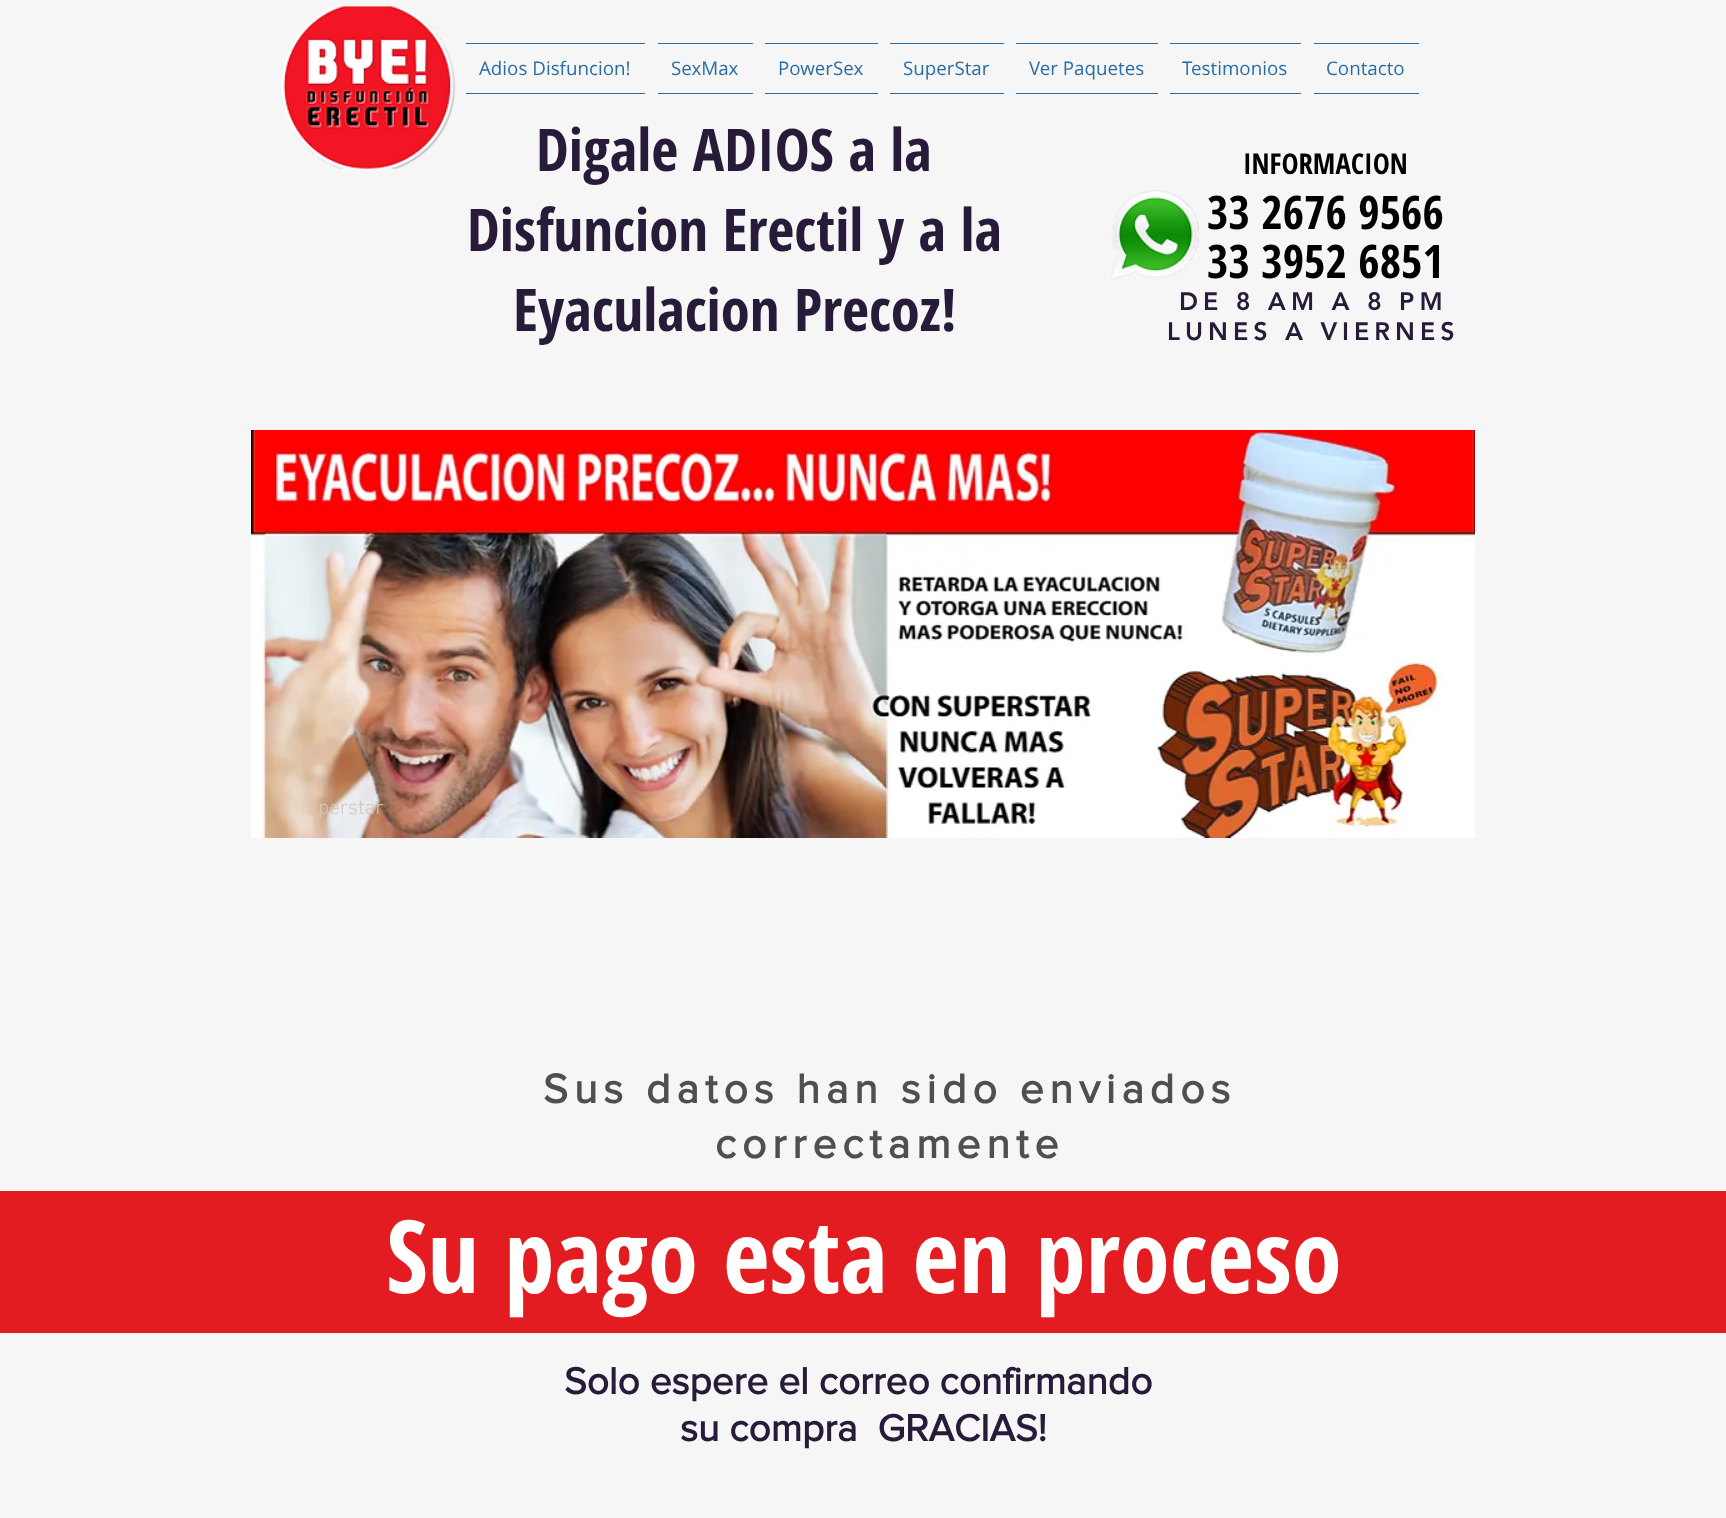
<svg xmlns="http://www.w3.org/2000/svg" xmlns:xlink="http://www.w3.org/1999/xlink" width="1726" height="1518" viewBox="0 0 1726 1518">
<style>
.cls-1{font:18.75px Open Sans;fill:#2b6ca3}
.cls-2{font:bold 58.75px Open Sans Condensed;fill:#281a39}
.cls-3{font:bold 28.75px Open Sans Condensed;fill:#000000}
.cls-4{font:bold 46.25px Open Sans Condensed;fill:#000000}
.cls-5{font:900 25px 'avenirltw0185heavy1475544';letter-spacing:5px;fill:#281a39}
.cls-6{font:300 21px 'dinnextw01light';fill:#dac6b7}
.cls-7{font:bold 42.5px 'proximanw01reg';letter-spacing:6px;fill:#4f4f4f}
.cls-8{font:bold 101.25px Open Sans Condensed;fill:#fffffe}
.cls-9{font:bold 38.75px 'proximanw01reg';fill:#281a39}
</style>
<rect width="100%" height="100%" fill="#f6f6f6"/>
<image xlink:href="image0.png" x="281" y="6" width="175" height="163"/>
<rect fill="#2b6ca3" x="466" y="43" width="179" height="1"/>
<rect fill="#2b6ca3" x="466" y="93" width="179" height="1"/>
<rect fill="#2b6ca3" x="658" y="43" width="95" height="1"/>
<rect fill="#2b6ca3" x="658" y="93" width="95" height="1"/>
<rect fill="#2b6ca3" x="765" y="43" width="113" height="1"/>
<rect fill="#2b6ca3" x="765" y="93" width="113" height="1"/>
<rect fill="#2b6ca3" x="890" y="43" width="114" height="1"/>
<rect fill="#2b6ca3" x="890" y="93" width="114" height="1"/>
<rect fill="#2b6ca3" x="1016" y="43" width="142" height="1"/>
<rect fill="#2b6ca3" x="1016" y="93" width="142" height="1"/>
<rect fill="#2b6ca3" x="1170" y="43" width="131" height="1"/>
<rect fill="#2b6ca3" x="1170" y="93" width="131" height="1"/>
<rect fill="#2b6ca3" x="1314" y="43" width="105" height="1"/>
<rect fill="#2b6ca3" x="1314" y="93" width="105" height="1"/>
<image xlink:href="image1.png" x="1110" y="190" width="90" height="90"/>
<image xlink:href="image2.png" x="251" y="430" width="1224" height="408"/>
<rect fill="#e21c21" x="0" y="1191" width="1726" height="142"/>
<text class="cls-1" x="479" y="75">Adios Disfuncion!</text>
<text class="cls-1" x="671" y="75">SexMax</text>
<text class="cls-1" x="778" y="75">PowerSex</text>
<text class="cls-1" x="903" y="75">SuperStar</text>
<text class="cls-1" x="1029" y="75">Ver Paquetes</text>
<text class="cls-1" x="1182" y="75">Testimonios</text>
<text class="cls-1" x="1326" y="75">Contacto</text>
<text class="cls-2" x="536" y="171">Digale ADIOS a la</text>
<text class="cls-2" x="467" y="251">Disfuncion Erectil y a la</text>
<text class="cls-2" x="513" y="331">Eyaculacion Precoz!</text>
<text class="cls-3" x="1243" y="174">INFORMACION</text>
<text class="cls-4"><tspan x="1207" y="229">33 2676 9566</tspan><tspan x="1207" y="278">33 3952 6851</tspan></text>
<text class="cls-5" x="1179" y="310">DE 8 AM A 8 PM</text>
<text class="cls-5" x="1167" y="340">LUNES A VIERNES</text>
<text class="cls-6" x="318" y="814">perstar</text>
<text class="cls-7" x="543" y="1103">Sus datos han sido enviados</text>
<text class="cls-7" x="715" y="1158">correctamente</text>
<text class="cls-8" x="386" y="1293">Su pago esta en proceso</text>
<text class="cls-9" x="564" y="1394">Solo espere el correo confirmando</text>
<text class="cls-9" xml:space="preserve" x="680" y="1441">su compra  GRACIAS!</text>
</svg>
